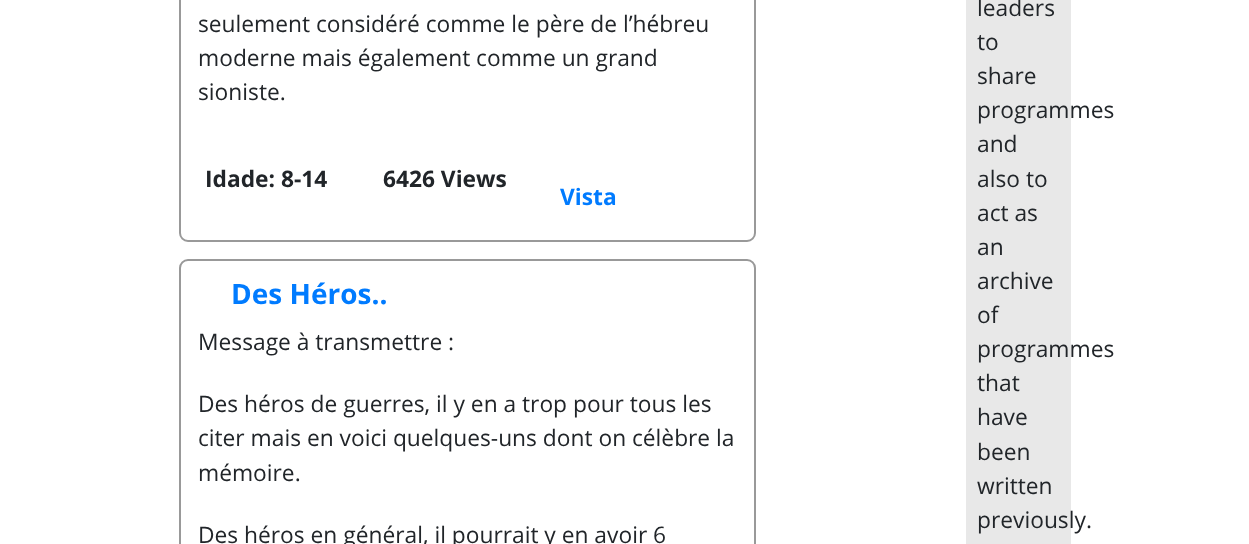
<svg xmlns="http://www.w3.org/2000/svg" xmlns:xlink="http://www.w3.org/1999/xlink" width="1249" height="544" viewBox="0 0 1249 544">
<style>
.cls-1{font:22.75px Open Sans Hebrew;fill:#212529}
.cls-2{font:bold 22.75px Open Sans Hebrew;fill:#212529}
.cls-3{font:bold 22.75px Open Sans Hebrew;fill:#007bff}
.cls-4{font:bold 28px Open Sans Hebrew;fill:#007bff}
</style>
<rect width="100%" height="100%" fill="#ffffff"/>
<rect fill="none" stroke="#999999" stroke-width="2" x="180" y="-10" width="575" height="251" rx="8"/>
<rect fill="none" stroke="#999999" stroke-width="2" x="180" y="260" width="575" height="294" rx="8"/>
<rect fill="#e8e8e8" x="966" y="0" width="105" height="544"/>
<text class="cls-1"><tspan x="198" y="32">seulement considéré comme le père de l’hébreu</tspan><tspan x="198" y="66">moderne mais également comme un grand</tspan><tspan x="198" y="100">sioniste.</tspan></text>
<text class="cls-2" x="205" y="187">Idade: 8-14</text>
<text class="cls-2" x="383" y="187">6426 Views</text>
<text class="cls-3" x="560" y="205">Vista</text>
<text class="cls-4" x="231" y="304">Des Héros..</text>
<text class="cls-1" x="198" y="350">Message à transmettre :</text>
<text class="cls-1"><tspan x="198" y="412">Des héros de guerres, il y en a trop pour tous les</tspan><tspan x="198" y="446">citer mais en voici quelques-uns dont on célèbre la</tspan><tspan x="198" y="481">mémoire.</tspan></text>
<text class="cls-1" x="198" y="543">Des héros en général, il pourrait y en avoir 6</text>
<text class="cls-1"><tspan x="977" y="16">leaders</tspan><tspan x="977" y="50">to</tspan><tspan x="977" y="84">share</tspan><tspan x="977" y="118">programmes</tspan><tspan x="977" y="152">and</tspan><tspan x="977" y="187">also to</tspan><tspan x="977" y="221">act as</tspan><tspan x="977" y="255">an</tspan><tspan x="977" y="289">archive</tspan><tspan x="977" y="323">of</tspan><tspan x="977" y="357">programmes</tspan><tspan x="977" y="391">that</tspan><tspan x="977" y="425">have</tspan><tspan x="977" y="460">been</tspan><tspan x="977" y="494">written</tspan><tspan x="977" y="528">previously.</tspan></text>
</svg>
